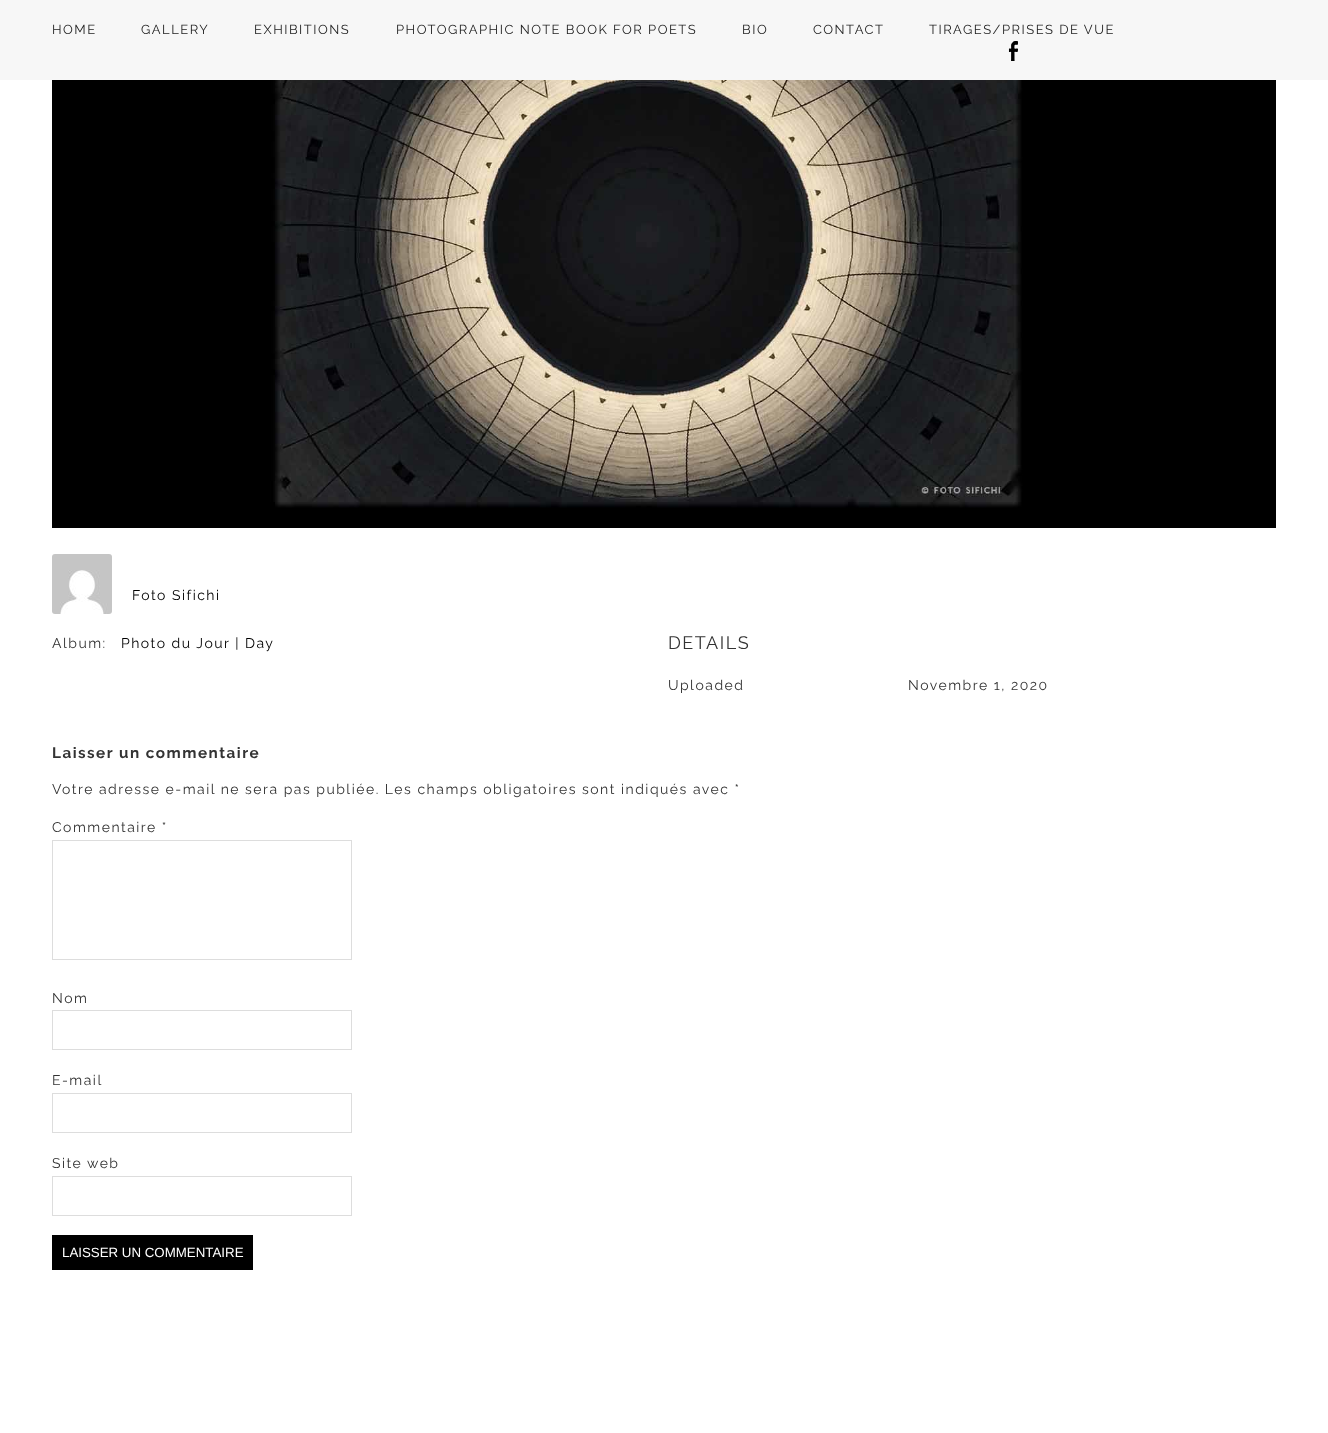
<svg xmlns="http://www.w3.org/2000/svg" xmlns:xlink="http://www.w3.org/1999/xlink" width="1328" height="1433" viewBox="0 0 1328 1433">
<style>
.cls-1{font:13px Raleway;letter-spacing:1.5px;fill:#222222}
.cls-2{font:14px Raleway;letter-spacing:1.5px;fill:#000000}
.cls-3{font:14px Raleway;letter-spacing:1.5px;fill:#333333}
.cls-4{font:18px Raleway;letter-spacing:1.5px;fill:#333333}
.cls-5{font:bold 15.25px Raleway;letter-spacing:1.5px;fill:#333333}
.cls-6{font:13.3px Liberation Sans;fill:#ffffff}
</style>
<rect width="100%" height="100%" fill="#ffffff"/>
<rect fill="#f7f7f7" x="0" y="0" width="1328" height="80"/>
<image xlink:href="image0.png" x="1008" y="41" width="10" height="20"/>
<image xlink:href="image1.png" x="52" y="80" width="1224" height="448"/>
<image xlink:href="image2.png" x="52" y="554" width="60" height="60"/>
<rect fill="none" stroke="#dddddd" x="52.5" y="840.5" width="299" height="119"/>
<rect fill="none" stroke="#dddddd" x="52.5" y="1010.5" width="299" height="39"/>
<rect fill="none" stroke="#dddddd" x="52.5" y="1093.5" width="299" height="39"/>
<rect fill="none" stroke="#dddddd" x="52.5" y="1176.5" width="299" height="39"/>
<rect fill="#000000" x="52" y="1235" width="201" height="35"/>
<text class="cls-1" x="52" y="34">HOME</text>
<text class="cls-1" x="141" y="34">GALLERY</text>
<text class="cls-1" x="254" y="34">EXHIBITIONS</text>
<text class="cls-1" x="396" y="34">PHOTOGRAPHIC NOTE BOOK FOR POETS</text>
<text class="cls-1" x="742" y="34">BIO</text>
<text class="cls-1" x="813" y="34">CONTACT</text>
<text class="cls-1" x="929" y="34">TIRAGES/PRISES DE VUE</text>
<text class="cls-2" x="132" y="600">Foto Sifichi</text>
<text class="cls-3" x="52" y="648">Album:</text>
<text class="cls-2" x="121" y="648">Photo du Jour | Day</text>
<text class="cls-4" x="668" y="649">DETAILS</text>
<text class="cls-3" x="668" y="690">Uploaded</text>
<text class="cls-3" x="908" y="690">Novembre 1, 2020</text>
<text class="cls-5" x="52" y="758">Laisser un commentaire</text>
<text class="cls-3" x="52" y="794">Votre adresse e-mail ne sera pas publiée. Les champs obligatoires sont indiqués avec *</text>
<text class="cls-3" x="52" y="832">Commentaire *</text>
<text class="cls-3" x="52" y="1003">Nom</text>
<text class="cls-3" x="52" y="1085">E-mail</text>
<text class="cls-3" x="52" y="1168">Site web</text>
<text class="cls-6" x="62" y="1257">LAISSER UN COMMENTAIRE</text>
</svg>
